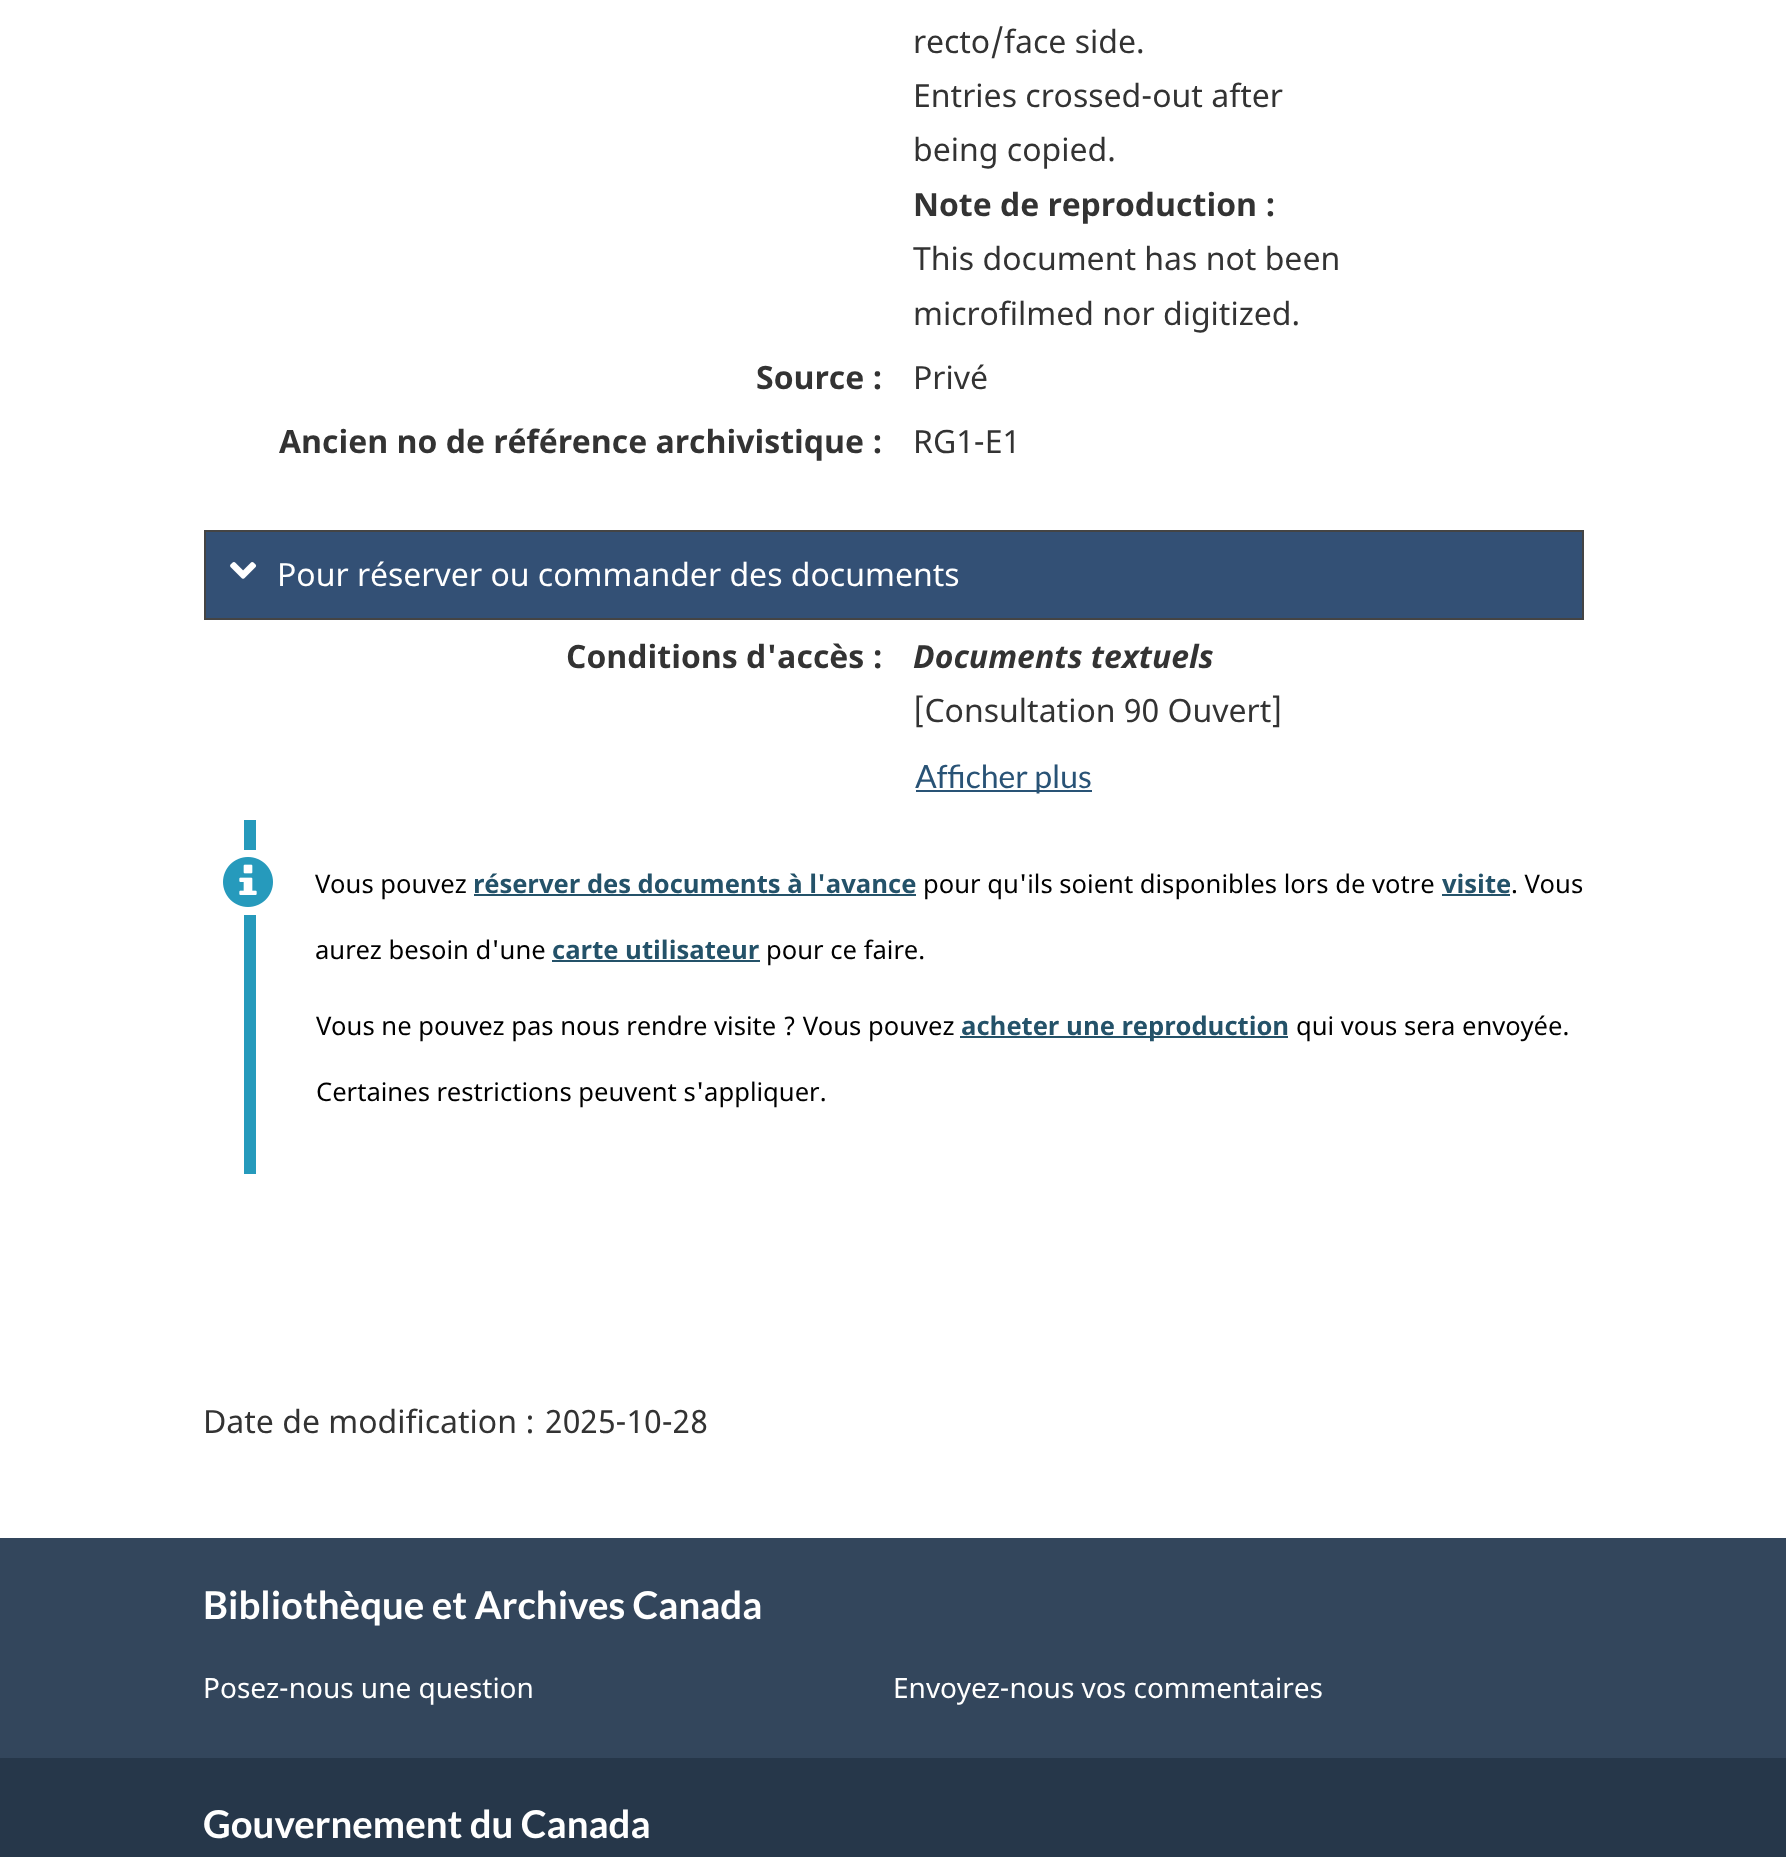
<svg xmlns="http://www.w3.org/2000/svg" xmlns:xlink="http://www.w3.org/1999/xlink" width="1786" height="1857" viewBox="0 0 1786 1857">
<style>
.cls-1{font:32px Noto Sans;fill:#333333}
.cls-2{font:bold 32px Noto Sans;fill:#333333}
.cls-3{font:32px Noto Sans;fill:#ffffff}
.cls-4{font:italic bold 32px Noto Sans;fill:#333333}
.cls-5{font:32px Lato;fill:#295376}
.cls-6{font:25.6px Noto Sans;fill:#000000}
.cls-7{font:bold 25.6px Noto Sans;fill:#245269}
.cls-8{font:bold 38.4px Lato;fill:#ffffff}
.cls-9{font:28px Noto Sans;fill:#ffffff}
</style>
<rect width="100%" height="100%" fill="#ffffff"/>
<rect fill="#335075" stroke="#444444" stroke-width="2" x="205" y="531" width="1378" height="88"/>
<image xlink:href="image0.png" x="230" y="562" width="27" height="17"/>
<rect fill="#295376" x="916" y="790" width="176" height="2"/>
<image xlink:href="image1.png" x="244" y="820" width="12" height="354"/>
<image xlink:href="image2.png" x="223" y="857" width="50" height="50"/>
<rect fill="#245269" x="474" y="894" width="442" height="2"/>
<rect fill="#245269" x="1442" y="894" width="68" height="2"/>
<rect fill="#245269" x="552" y="960" width="208" height="2"/>
<rect fill="#245269" x="960" y="1036" width="328" height="2"/>
<rect fill="#33465c" x="0" y="1538" width="1786" height="220"/>
<rect fill="#26374a" x="0" y="1758" width="1786" height="99"/>
<text class="cls-1"><tspan x="913" y="53">recto/face side.</tspan><tspan x="913" y="107">Entries crossed-out after</tspan><tspan x="913" y="161">being copied.</tspan></text>
<text class="cls-2" x="913" y="216">Note de reproduction :</text>
<text class="cls-1"><tspan x="913" y="270">This document has not been</tspan><tspan x="913" y="325">microfilmed nor digitized.</tspan></text>
<text class="cls-2" x="756" y="389">Source :</text>
<text class="cls-1" x="913" y="389">Privé</text>
<text class="cls-2" x="279" y="453">Ancien no de référence archivistique :</text>
<text class="cls-1" x="913" y="453">RG1-E1</text>
<text class="cls-3" x="277" y="586">Pour réserver ou commander des documents</text>
<text class="cls-2" x="566" y="668">Conditions d'accès :</text>
<text class="cls-4" x="913" y="668">Documents textuels</text>
<text class="cls-1" x="913" y="722">[Consultation 90 Ouvert]</text>
<text class="cls-5" x="915" y="788">Afficher plus</text>
<text class="cls-6" x="315" y="893">Vous pouvez</text>
<text class="cls-7" x="473" y="893">réserver des documents à l'avance</text>
<text class="cls-6" x="923" y="893">pour qu'ils soient disponibles lors de votre</text>
<text class="cls-7" x="1442" y="893">visite</text>
<text class="cls-6" x="1511" y="893">. Vous</text>
<text class="cls-6" x="315" y="959">aurez besoin d'une</text>
<text class="cls-7" x="552" y="959">carte utilisateur</text>
<text class="cls-6" x="766" y="959">pour ce faire.</text>
<text class="cls-6" x="316" y="1035">Vous ne pouvez pas nous rendre visite ? Vous pouvez</text>
<text class="cls-7" x="961" y="1035">acheter une reproduction</text>
<text class="cls-6" x="1296" y="1035">qui vous sera envoyée.</text>
<text class="cls-6" x="316" y="1101">Certaines restrictions peuvent s'appliquer.</text>
<text class="cls-1" x="203" y="1433">Date de modification :</text>
<text class="cls-1" x="545" y="1433">2025-10-28</text>
<text class="cls-8" x="203" y="1619">Bibliothèque et Archives Canada</text>
<text class="cls-9" x="203" y="1698">Posez-nous une question</text>
<text class="cls-9" x="893" y="1698">Envoyez-nous vos commentaires</text>
<text class="cls-8" x="203" y="1838">Gouvernement du Canada</text>
</svg>
